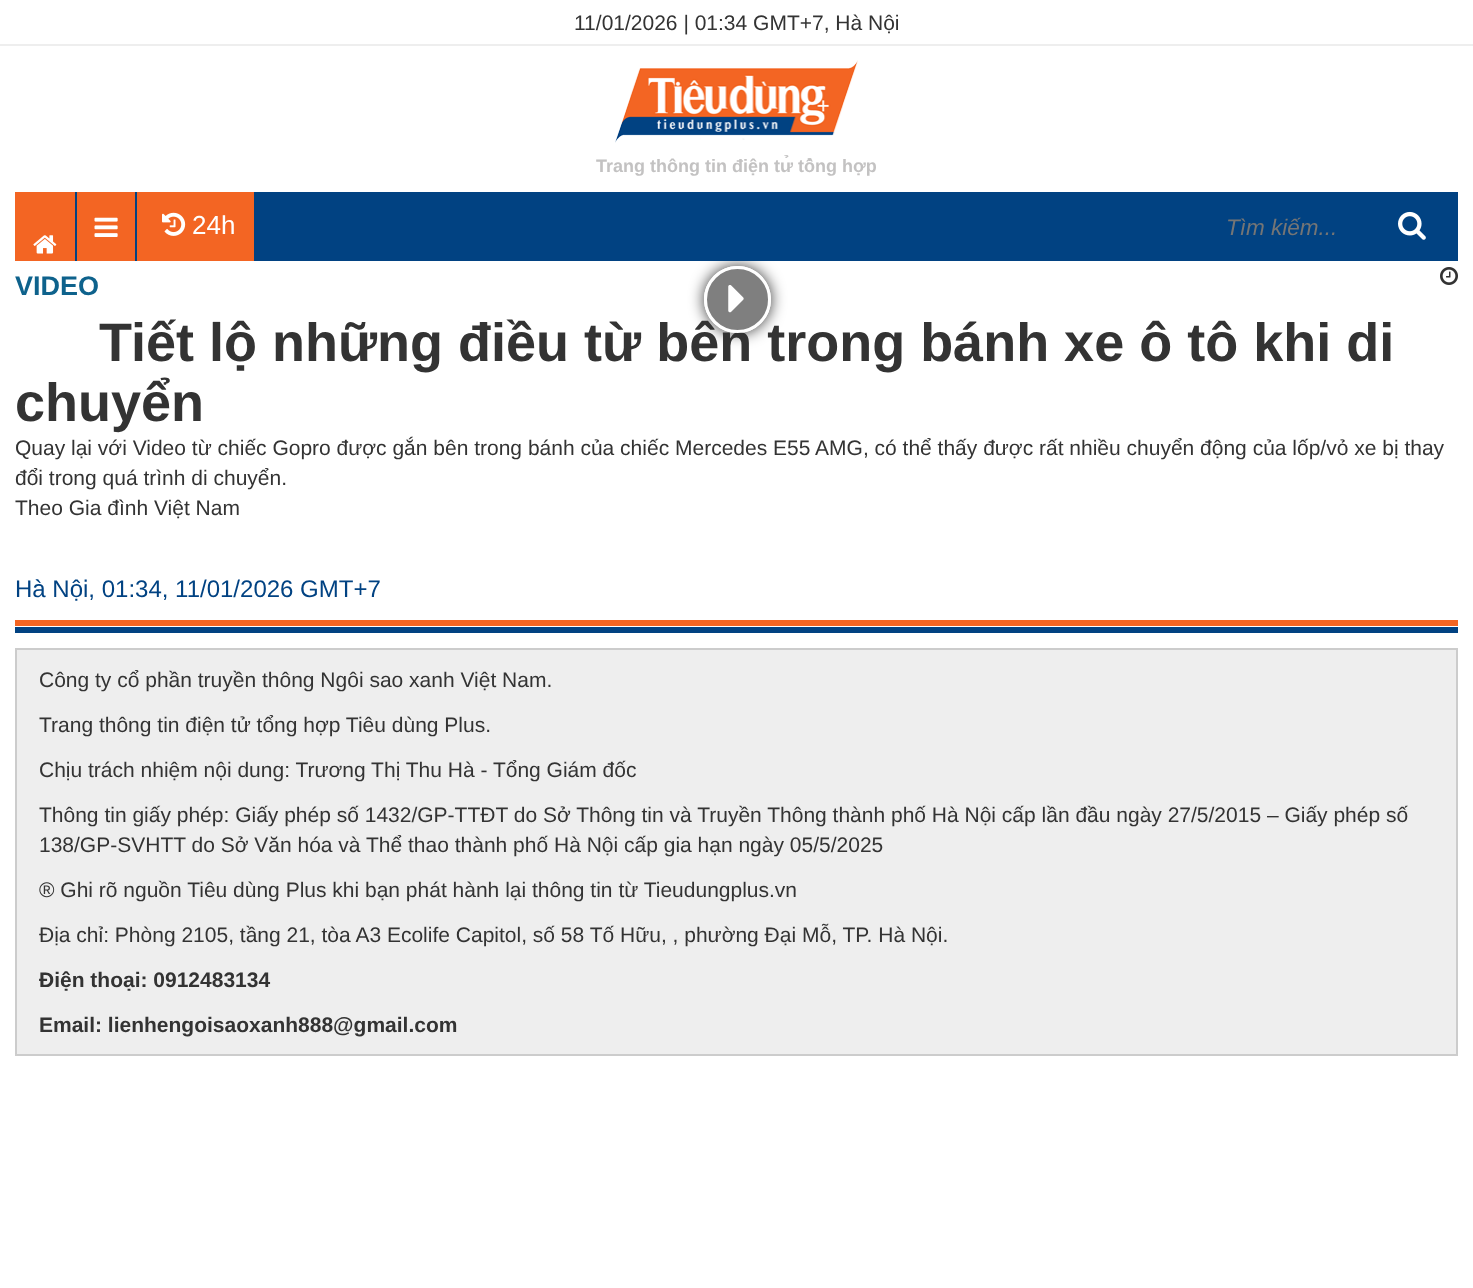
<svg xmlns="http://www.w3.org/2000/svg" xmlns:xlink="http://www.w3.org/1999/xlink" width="1473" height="1288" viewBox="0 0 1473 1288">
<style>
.cls-1{font:21px Liberation Sans;fill:#333333}
.cls-2{font:bold 18px Liberation Sans;fill:#c3c2c2}
.cls-3{font:26px Liberation Sans;fill:#ffffff}
.cls-4{font:italic 22.5px Liberation Sans;fill:#757575}
.cls-5{font:bold 27px Liberation Sans;fill:#0e628c}
.cls-6{font:bold 54px Liberation Sans;fill:#333333}
.cls-7{font:24px Liberation Sans;fill:#014282}
.cls-8{font:bold 21px Liberation Sans;fill:#333333}
</style>
<defs>
<clipPath id="clip1"><rect x="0" y="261" width="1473" height="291"/></clipPath>
<clipPath id="clip2"><path d="M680 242H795V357H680ZM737.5 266C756 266 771 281 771 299.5C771 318 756 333 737.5 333C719 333 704 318 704 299.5C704 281 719 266 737.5 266Z" clip-rule="evenodd"/></clipPath>
</defs>
<rect width="100%" height="100%" fill="#ffffff"/>
<rect fill="#eeeeee" x="0" y="44" width="1473" height="2"/>
<image xlink:href="image0.png" x="615" y="60" width="243" height="83"/>
<rect fill="#014282" x="75" y="192" width="1383" height="69"/>
<rect fill="#f36523" x="15" y="192" width="60" height="69"/>
<image xlink:href="image1.png" x="33" y="235" width="24" height="19"/>
<rect fill="#f36523" x="77" y="192" width="58" height="69"/>
<image xlink:href="image2.png" x="94" y="217" width="24" height="20"/>
<rect fill="#f36523" x="137" y="192" width="117" height="69"/>
<image xlink:href="image3.png" x="162" y="212" width="24" height="24"/>
<image xlink:href="image4.png" x="1398" y="211" width="28" height="29"/>
<image xlink:href="image5.png" x="1440" y="267" width="18" height="18"/>
<g clip-path="url(#clip1)">
<g clip-path="url(#clip2)">
<rect fill="#000000" fill-opacity="0.8" filter="blur(7.5px)" x="704" y="266" width="67" height="67" rx="33.5"/>
</g>
</g>
<rect fill="#f36523" x="15" y="620" width="1443" height="6"/>
<rect fill="#014282" x="15" y="627" width="1443" height="6"/>
<rect fill="#eeeeee" stroke="#cccccc" stroke-width="2" x="16" y="649" width="1441" height="406"/>
<text class="cls-1" x="574" y="30">11/01/2026 | 01:34 GMT+7, Hà Nội</text>
<text class="cls-2" x="596" y="172">Trang thông tin điện tử tổng hợp</text>
<text class="cls-3" x="192" y="234">24h</text>
<text class="cls-4" x="1226" y="235">Tìm kiếm...</text>
<text class="cls-5" x="15" y="295">VIDEO</text>
<text class="cls-6" x="99" y="361">Tiết lộ những điều từ bên trong bánh xe ô tô khi di</text>
<circle fill="#000000" fill-opacity="0.5" stroke="#ffffff" stroke-width="3" cx="737.5" cy="299.5" r="32"/>
<image xlink:href="image6.png" x="728" y="285" width="16" height="28"/>
<text class="cls-6" x="15" y="421">chuyển</text>
<text class="cls-1"><tspan x="15" y="455">Quay lại với Video từ chiếc Gopro được gắn bên trong bánh của chiếc Mercedes E55 AMG, có thể thấy được rất nhiều chuyển động của lốp/vỏ xe bị thay</tspan><tspan x="15" y="485">đổi trong quá trình di chuyển.</tspan><tspan x="15" y="515">Theo Gia đình Việt Nam</tspan></text>
<text class="cls-7" x="15" y="597">Hà Nội, 01:34, 11/01/2026 GMT+7</text>
<text class="cls-1" x="39" y="687">Công ty cổ phần truyền thông Ngôi sao xanh Việt Nam.</text>
<text class="cls-1" x="39" y="732">Trang thông tin điện tử tổng hợp Tiêu dùng Plus.</text>
<text class="cls-1" x="39" y="777">Chịu trách nhiệm nội dung: Trương Thị Thu Hà - Tổng Giám đốc</text>
<text class="cls-1"><tspan x="39" y="822">Thông tin giấy phép: Giấy phép số 1432/GP-TTĐT do Sở Thông tin và Truyền Thông thành phố Hà Nội cấp lần đầu ngày 27/5/2015 – Giấy phép số</tspan><tspan x="39" y="852">138/GP-SVHTT do Sở Văn hóa và Thể thao thành phố Hà Nội cấp gia hạn ngày 05/5/2025</tspan></text>
<text class="cls-1" x="39" y="897">® Ghi rõ nguồn Tiêu dùng Plus khi bạn phát hành lại thông tin từ Tieudungplus.vn</text>
<text class="cls-1" x="39" y="942">Địa chỉ: Phòng 2105, tầng 21, tòa A3 Ecolife Capitol, số 58 Tố Hữu, , phường Đại Mỗ, TP. Hà Nội.</text>
<text class="cls-8" x="39" y="987">Điện thoại: 0912483134</text>
<text class="cls-8" x="39" y="1032">Email: lienhengoisaoxanh888@gmail.com</text>
</svg>
